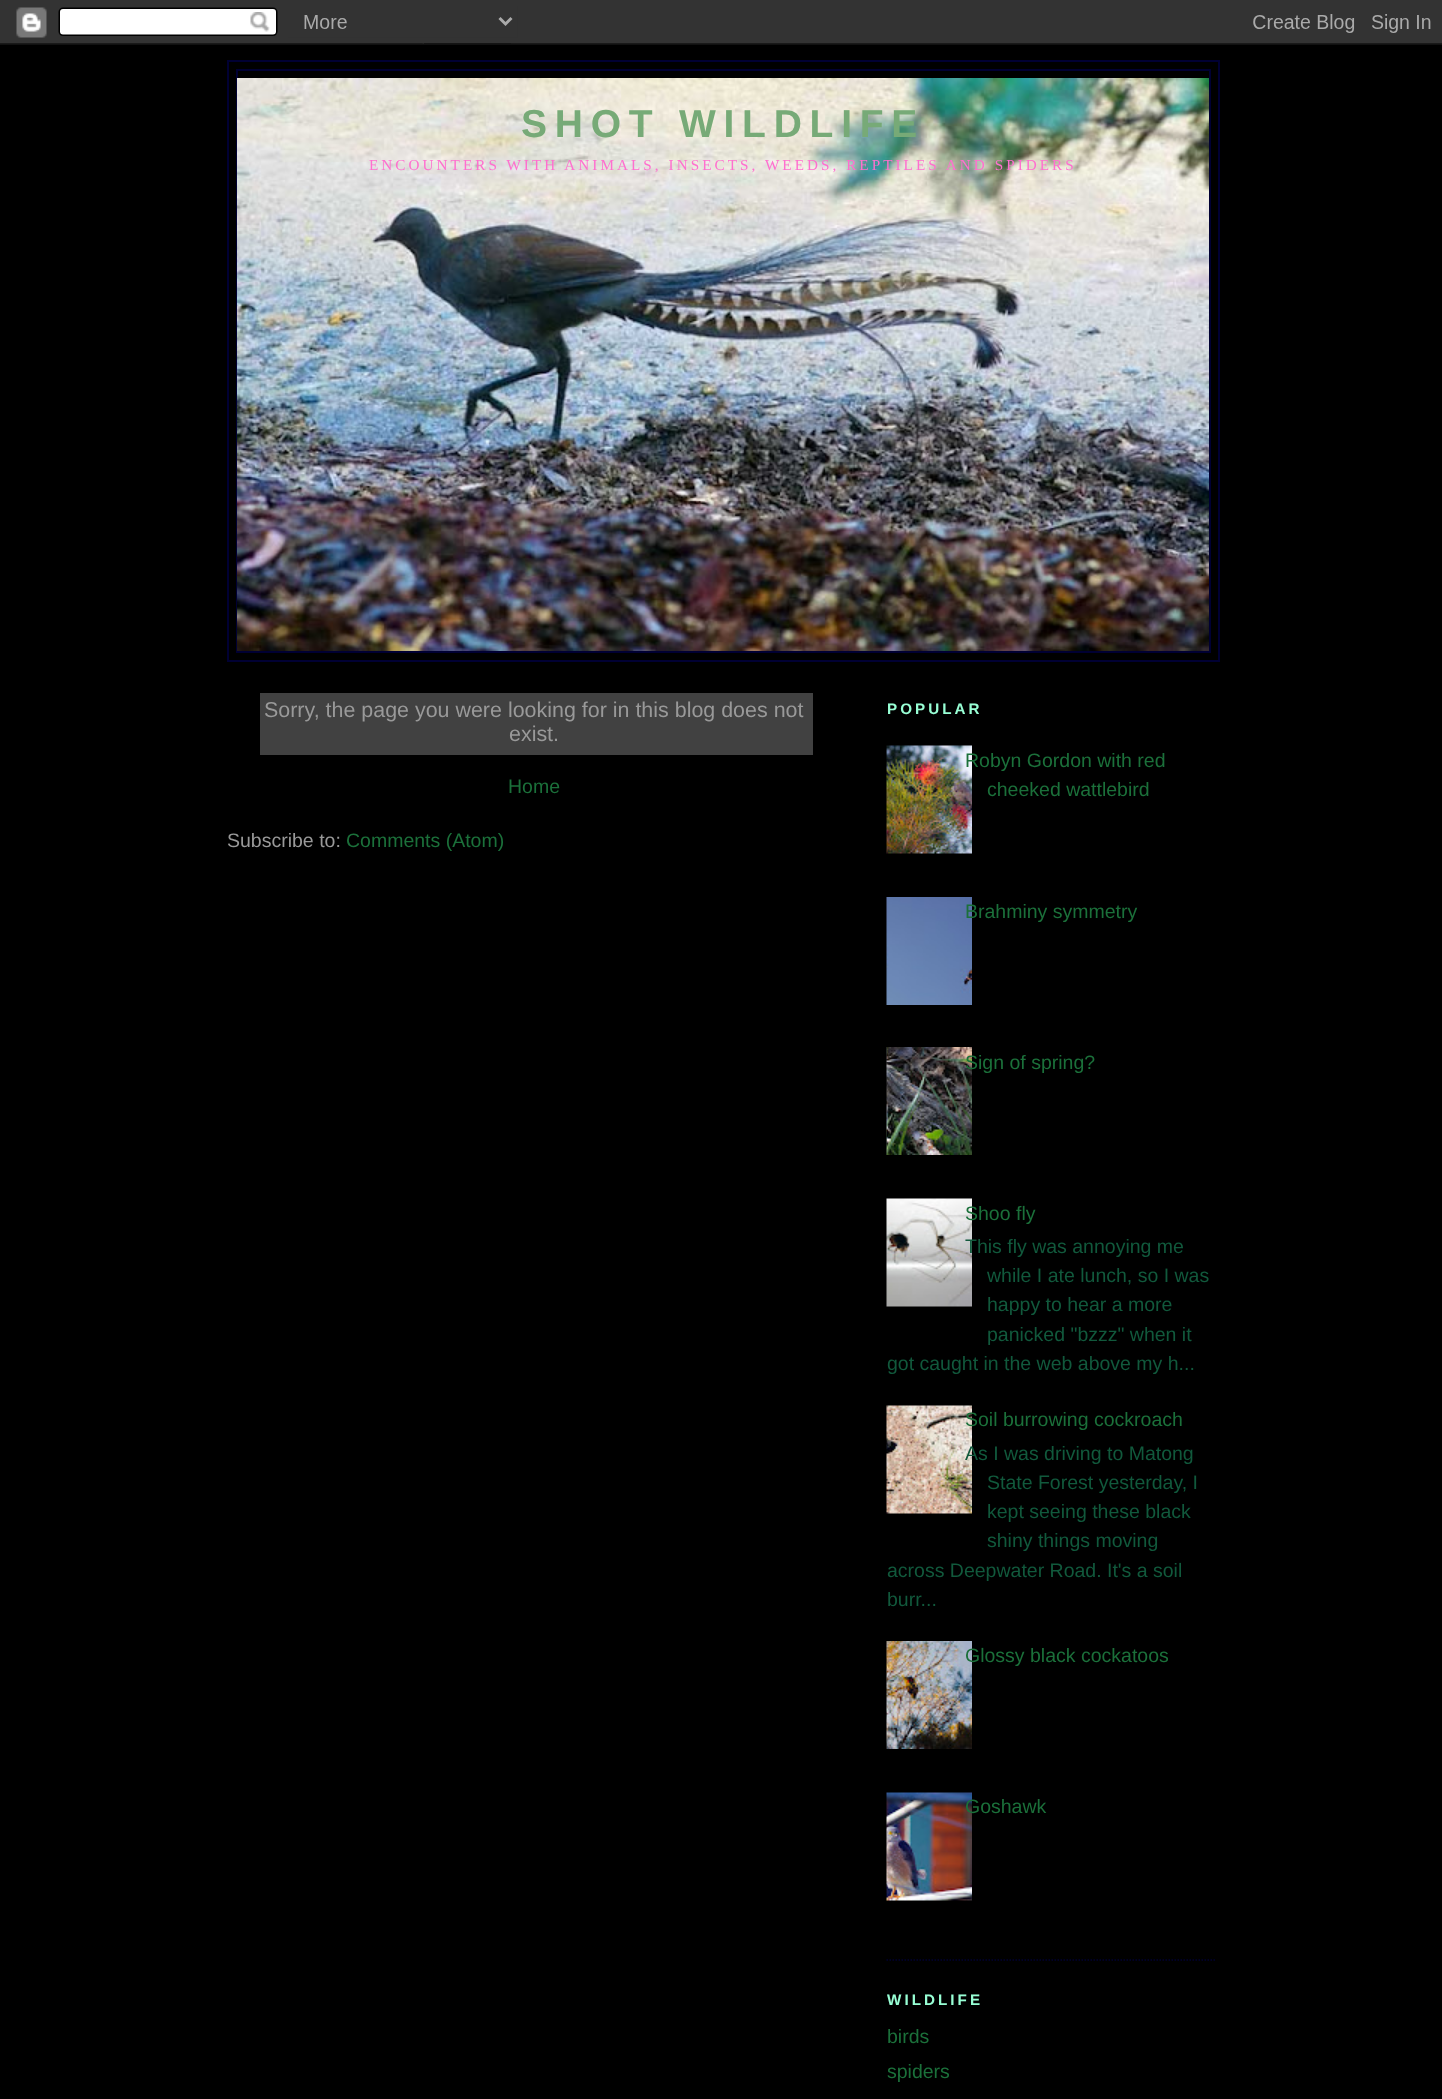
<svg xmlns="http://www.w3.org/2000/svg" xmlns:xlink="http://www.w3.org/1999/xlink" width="1442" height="2099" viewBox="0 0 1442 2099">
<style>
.cls-1{font:bold 39px Liberation Sans;letter-spacing:7.75px;fill:#77aa77}
.cls-2{font:15.2px Liberation Serif;letter-spacing:3.05px;fill:#ff6fcf}
.cls-3{font:21.45px Liberation Sans;fill:#999999}
.cls-4{font:19.5px Liberation Sans;fill:#1b703a}
.cls-5{font:19.5px Liberation Sans;fill:#999999}
.cls-6{font:bold 15.2px Liberation Sans;letter-spacing:3.05px;fill:#98ffd5}
.cls-7{font:19.5px Liberation Sans;fill:#11593c}
</style>
<rect width="100%" height="100%" fill="#000000"/>
<image xlink:href="image0.png" x="0" y="0" width="1442" height="45"/>
<rect fill="none" stroke="#000033" stroke-width="2" x="228" y="61" width="991" height="600"/>
<rect fill="none" stroke="#000033" stroke-width="2" x="237" y="70" width="973" height="582"/>
<image xlink:href="image1.png" x="237" y="78" width="972" height="573"/>
<rect fill="#414141" x="260" y="693" width="553" height="62"/>
<path fill="none" stroke="#000033" stroke-width="1.5" stroke-dasharray="1.5 1.5" d="M886.5 1960H1216.5"/>
<image xlink:href="image2.png" x="886" y="745" width="86" height="109"/>
<image xlink:href="image3.png" x="886" y="897" width="86" height="108"/>
<image xlink:href="image4.png" x="886" y="1047" width="86" height="108"/>
<image xlink:href="image5.png" x="886" y="1198" width="86" height="109"/>
<image xlink:href="image6.png" x="886" y="1405" width="86" height="109"/>
<image xlink:href="image7.png" x="886" y="1641" width="86" height="108"/>
<image xlink:href="image8.png" x="886" y="1792" width="86" height="109"/>
<text class="cls-1" x="521" y="137">SHOT WILDLIFE</text>
<text class="cls-2" x="369" y="170">ENCOUNTERS WITH ANIMALS, INSECTS, WEEDS, REPTILES AND SPIDERS</text>
<text class="cls-3" x="264" y="717">Sorry, the page you were looking for in this blog does not</text>
<text class="cls-3" x="509" y="741">exist.</text>
<text class="cls-4" x="508" y="793">Home</text>
<text class="cls-5" x="227" y="847">Subscribe to:</text>
<text class="cls-4" x="346" y="847">Comments (Atom)</text>
<text class="cls-6" x="887" y="714">POPULAR</text>
<text class="cls-4" x="965" y="767">Robyn Gordon with red</text>
<text class="cls-4" x="987" y="796">cheeked wattlebird</text>
<text class="cls-4" x="965" y="918">Brahminy symmetry</text>
<text class="cls-4" x="965" y="1069">Sign of spring?</text>
<text class="cls-4" x="965" y="1220">Shoo fly</text>
<text class="cls-7" x="965" y="1253">This fly was annoying me</text>
<text class="cls-7"><tspan x="987" y="1282">while I ate lunch, so I was</tspan><tspan x="987" y="1311">happy to hear a more</tspan><tspan x="987" y="1341">panicked "bzzz" when it</tspan></text>
<text class="cls-7" x="887" y="1370">got caught in the web above my h...</text>
<text class="cls-4" x="965" y="1426">Soil burrowing cockroach</text>
<text class="cls-7" x="965" y="1460">As I was driving to Matong</text>
<text class="cls-7"><tspan x="987" y="1489">State Forest yesterday, I</tspan><tspan x="987" y="1518">kept seeing these black</tspan><tspan x="987" y="1547">shiny things moving</tspan></text>
<text class="cls-7"><tspan x="887" y="1577">across Deepwater Road. It's a soil</tspan><tspan x="887" y="1606">burr...</tspan></text>
<text class="cls-4" x="965" y="1662">Glossy black cockatoos</text>
<text class="cls-4" x="965" y="1813">Goshawk</text>
<text class="cls-6" x="887" y="2005">WILDLIFE</text>
<text class="cls-4"><tspan x="887" y="2043">birds</tspan><tspan x="887" y="2078">spiders</tspan></text>
</svg>
